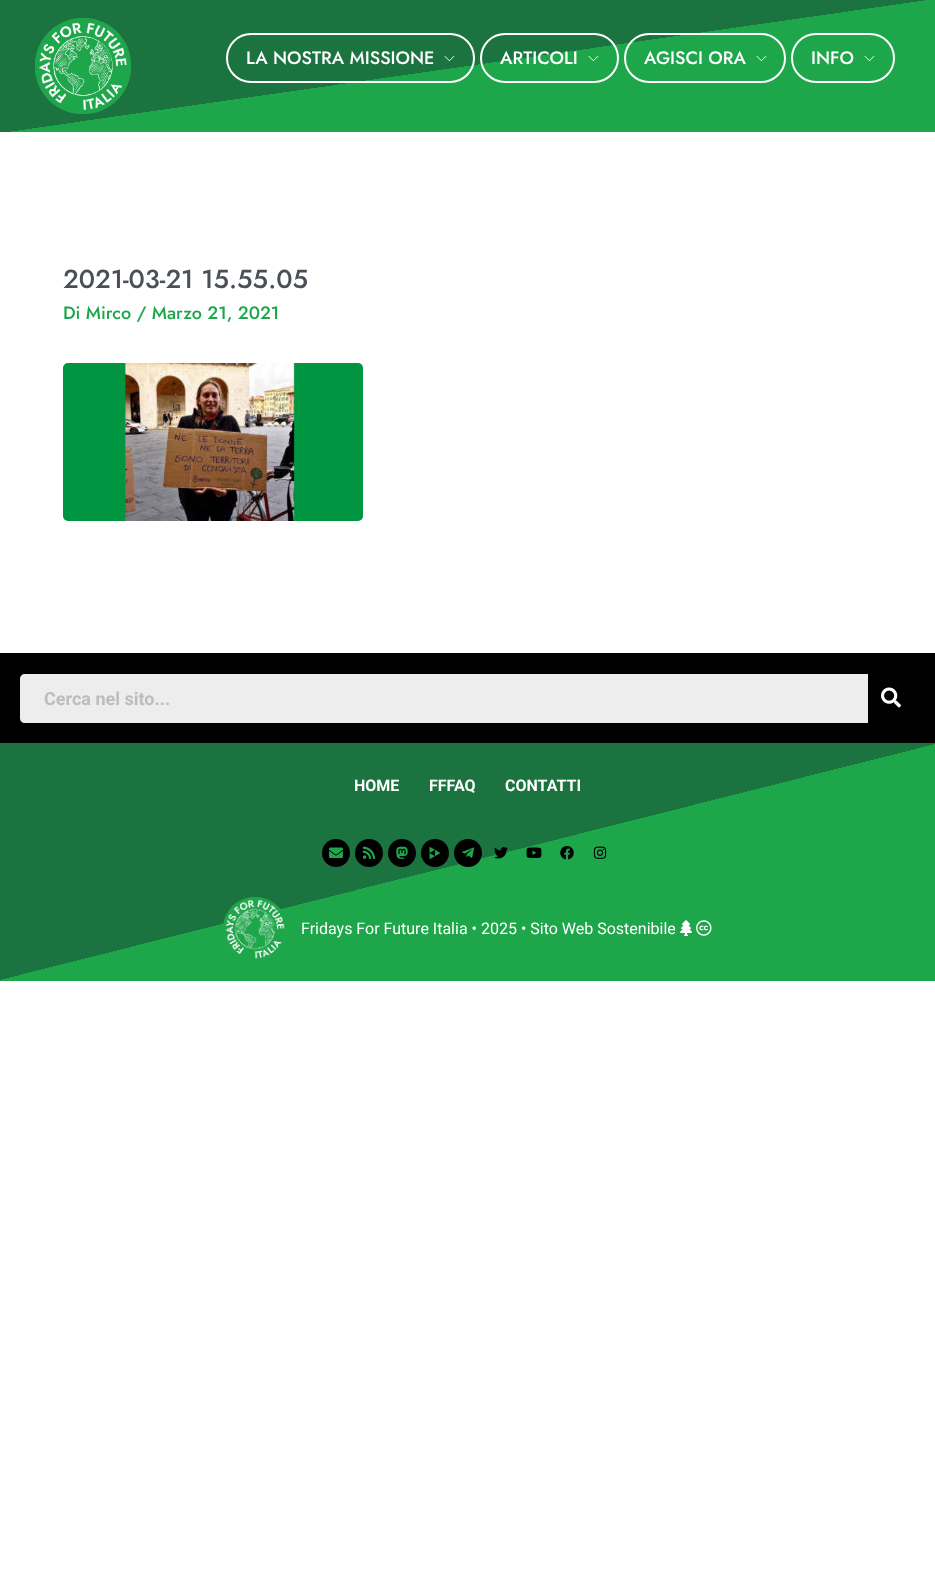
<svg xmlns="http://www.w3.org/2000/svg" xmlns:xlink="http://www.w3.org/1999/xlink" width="935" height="1569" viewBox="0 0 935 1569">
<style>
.cls-1{font:500 18px Jost;fill:#ffffff}
.cls-2{font:500 26px Jost;fill:#4b4f58}
.cls-3{font:500 18px Jost;fill:#1da64a}
.cls-4{font:bold 18px Roboto;fill:#bdbdbd}
.cls-5{font:bold 16px Roboto;fill:#ffffff}
.cls-6{font:16px Roboto;fill:#ffffff}
</style>
<defs>
<linearGradient id="g1" gradientUnits="userSpaceOnUse" x1="449" y1="-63" x2="486" y2="195"><stop offset="0.5" stop-color="#1b7340"/><stop offset="0.5" stop-color="#1da64a"/></linearGradient>
<clipPath id="clip1"><rect x="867" y="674" width="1" height="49"/></clipPath>
<linearGradient id="g2" gradientUnits="userSpaceOnUse" x1="411" y1="638" x2="524" y2="1086"><stop offset="0.5" stop-color="#1b7340"/><stop offset="0.5" stop-color="#1da64a"/></linearGradient>
</defs>
<rect width="100%" height="100%" fill="#ffffff"/>
<rect fill="url(#g1)" x="0" y="0" width="935" height="132"/>
<image xlink:href="image0.png" x="35" y="18" width="96" height="96"/>
<rect fill="none" stroke="#ffffff" stroke-width="2" x="227" y="34" width="247" height="48" rx="24"/>
<image xlink:href="image1.png" x="444" y="55" width="11" height="7"/>
<rect fill="none" stroke="#ffffff" stroke-width="2" x="481" y="34" width="137" height="48" rx="24"/>
<image xlink:href="image2.png" x="588" y="55" width="11" height="7"/>
<rect fill="none" stroke="#ffffff" stroke-width="2" x="625" y="34" width="160" height="48" rx="24"/>
<image xlink:href="image2.png" x="756" y="55" width="11" height="7"/>
<rect fill="none" stroke="#ffffff" stroke-width="2" x="792" y="34" width="102" height="48" rx="24"/>
<image xlink:href="image2.png" x="864" y="55" width="11" height="7"/>
<image xlink:href="image3.png" x="63" y="363" width="300" height="158"/>
<rect fill="#000000" x="0" y="653" width="935" height="90"/>
<path fill="#ededed" d="M25 674H868V723H25C22 723 20 721 20 718V679C20 676 22 674 25 674Z"/>
<g clip-path="url(#clip1)">
<rect fill="#000000" fill-opacity="0.5" filter="blur(0.5px)" x="868" y="674" width="47" height="49"/>
</g>
<image xlink:href="image4.png" x="881" y="687" width="20" height="21"/>
<rect fill="url(#g2)" x="0" y="743" width="935" height="238"/>
<circle fill="#000000" cx="336" cy="853" r="14"/>
<image xlink:href="image5.png" x="329" y="847" width="14" height="11"/>
<circle fill="#000000" cx="369" cy="853" r="14"/>
<image xlink:href="image6.png" x="362" y="846" width="14" height="13"/>
<circle fill="#000000" cx="402" cy="853" r="14"/>
<image xlink:href="image7.png" x="396" y="846" width="12" height="13"/>
<circle fill="#000000" cx="435" cy="853" r="14"/>
<image xlink:href="image8.png" x="429" y="846" width="12" height="14"/>
<circle fill="#000000" cx="468" cy="853" r="14"/>
<image xlink:href="image9.png" x="461" y="847" width="14" height="11"/>
<image xlink:href="image10.png" x="494" y="847" width="14" height="12"/>
<image xlink:href="image11.png" x="526" y="847" width="16" height="11"/>
<image xlink:href="image12.png" x="560" y="846" width="14" height="14"/>
<image xlink:href="image13.png" x="593" y="846" width="14" height="13"/>
<image xlink:href="image14.png" x="223" y="897" width="64" height="64"/>
<image xlink:href="image15.png" x="680" y="920" width="12" height="16"/>
<image xlink:href="image16.png" x="696" y="920" width="16" height="16"/>
<text class="cls-1" x="246" y="64">LA NOSTRA MISSIONE</text>
<text class="cls-1" x="500" y="64">ARTICOLI</text>
<text class="cls-1" x="644" y="64">AGISCI ORA</text>
<text class="cls-1" x="811" y="64">INFO</text>
<text class="cls-2" x="63" y="288">2021-03-21 15.55.05</text>
<text class="cls-3" x="63" y="319">Di Mirco / Marzo 21, 2021</text>
<text class="cls-4" x="44" y="705">Cerca nel sito...</text>
<text class="cls-5" x="354" y="791">HOME</text>
<text class="cls-5" x="429" y="791">FFFAQ</text>
<text class="cls-5" x="505" y="791">CONTATTI</text>
<text class="cls-6" x="301" y="934">Fridays For Future Italia • 2025 • Sito Web Sostenibile</text>
</svg>
